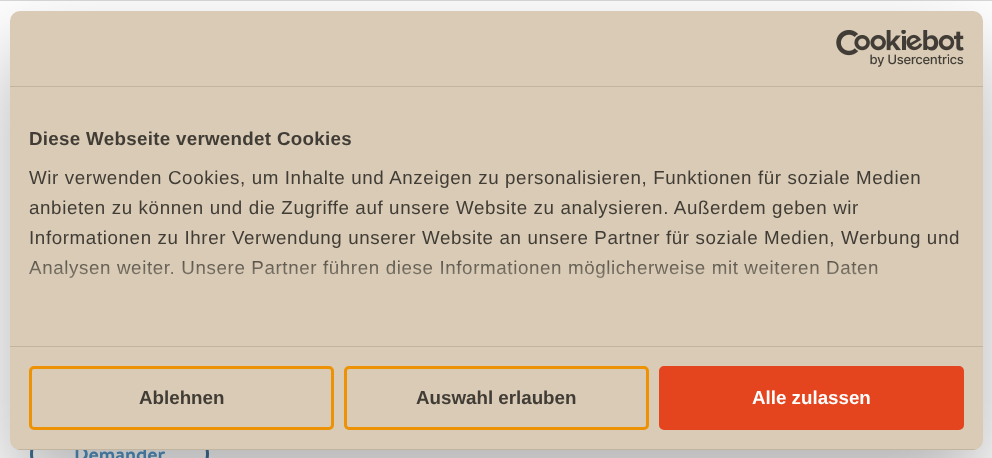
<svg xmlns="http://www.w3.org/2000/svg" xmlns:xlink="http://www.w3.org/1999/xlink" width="992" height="458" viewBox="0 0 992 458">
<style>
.cls-1{font:bold 20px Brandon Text;fill:#417298}
.cls-2{font:18.75px Liberation Sans;letter-spacing:0.62px;fill:#413d36}
.cls-3{font:bold 18.75px Liberation Sans;fill:#ffffff}
.cls-4{font:bold 18.75px Liberation Sans;fill:#413d36}
.cls-5{font:bold 18.75px Liberation Sans;letter-spacing:0.3px;fill:#413d36}
</style>
<defs>
<linearGradient id="g1" gradientUnits="userSpaceOnUse" x1="488" y1="346" x2="488" y2="252"><stop offset="0" stop-color="#d9cbb5"/><stop offset="0.5" stop-color="#d9cbb5" stop-opacity="0.8"/><stop offset="1" stop-color="#d9cbb5" stop-opacity="0"/></linearGradient>
<clipPath id="clip1"><rect x="10" y="11" width="973" height="439" rx="10"/></clipPath>
</defs>
<rect width="100%" height="100%" fill="#ffffff"/>
<rect fill="#d9d9d9" x="0" y="0" width="992" height="1"/>
<rect fill="none" stroke="#417298" stroke-width="3" x="31.5" y="427.5" width="176" height="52" rx="26"/>
<rect fill="#000000" fill-opacity="0.3" filter="blur(42.5px)" x="10" y="51" width="973" height="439" rx="10"/>
<text class="cls-1" x="74" y="461">Demander</text>
<rect fill="#d9cbb5" x="10" y="11" width="973" height="439" rx="10"/>
<text class="cls-2" x="29" y="274">Analysen weiter. Unsere Partner führen diese Informationen möglicherweise mit weiteren Daten</text>
<rect fill="url(#g1)" x="28" y="260" width="850" height="18"/>
<rect fill="#e4441e" stroke="#e4441e" stroke-width="3" x="660.5" y="367.5" width="302" height="61" rx="3.5"/>
<text class="cls-3" x="752" y="404">Alle zulassen</text>
<rect fill="none" stroke="#ed9205" stroke-width="3" x="345.5" y="367.5" width="302" height="61" rx="3.5"/>
<text class="cls-4" x="416" y="404">Auswahl erlauben</text>
<rect fill="none" stroke="#ed9205" stroke-width="3" x="30.5" y="367.5" width="302" height="61" rx="3.5"/>
<text class="cls-4" x="139" y="404">Ablehnen</text>
<g clip-path="url(#clip1)">
<rect fill="#c2b5a0" x="10" y="449" width="973" height="1"/>
</g>
<text class="cls-2" x="29" y="244">Informationen zu Ihrer Verwendung unserer Website an unsere Partner für soziale Medien, Werbung und</text>
<text class="cls-2" x="29" y="214">anbieten zu können und die Zugriffe auf unsere Website zu analysieren. Außerdem geben wir</text>
<text class="cls-2" x="29" y="184">Wir verwenden Cookies, um Inhalte und Anzeigen zu personalisieren, Funktionen für soziale Medien</text>
<text class="cls-5" x="29" y="145">Diese Webseite verwendet Cookies</text>
<rect fill="#c2b5a0" x="10" y="346" width="973" height="1"/>
<image xlink:href="image0.png" x="836" y="30" width="128" height="37"/>
<rect fill="#c2b5a0" x="10" y="86" width="973" height="1"/>
</svg>
